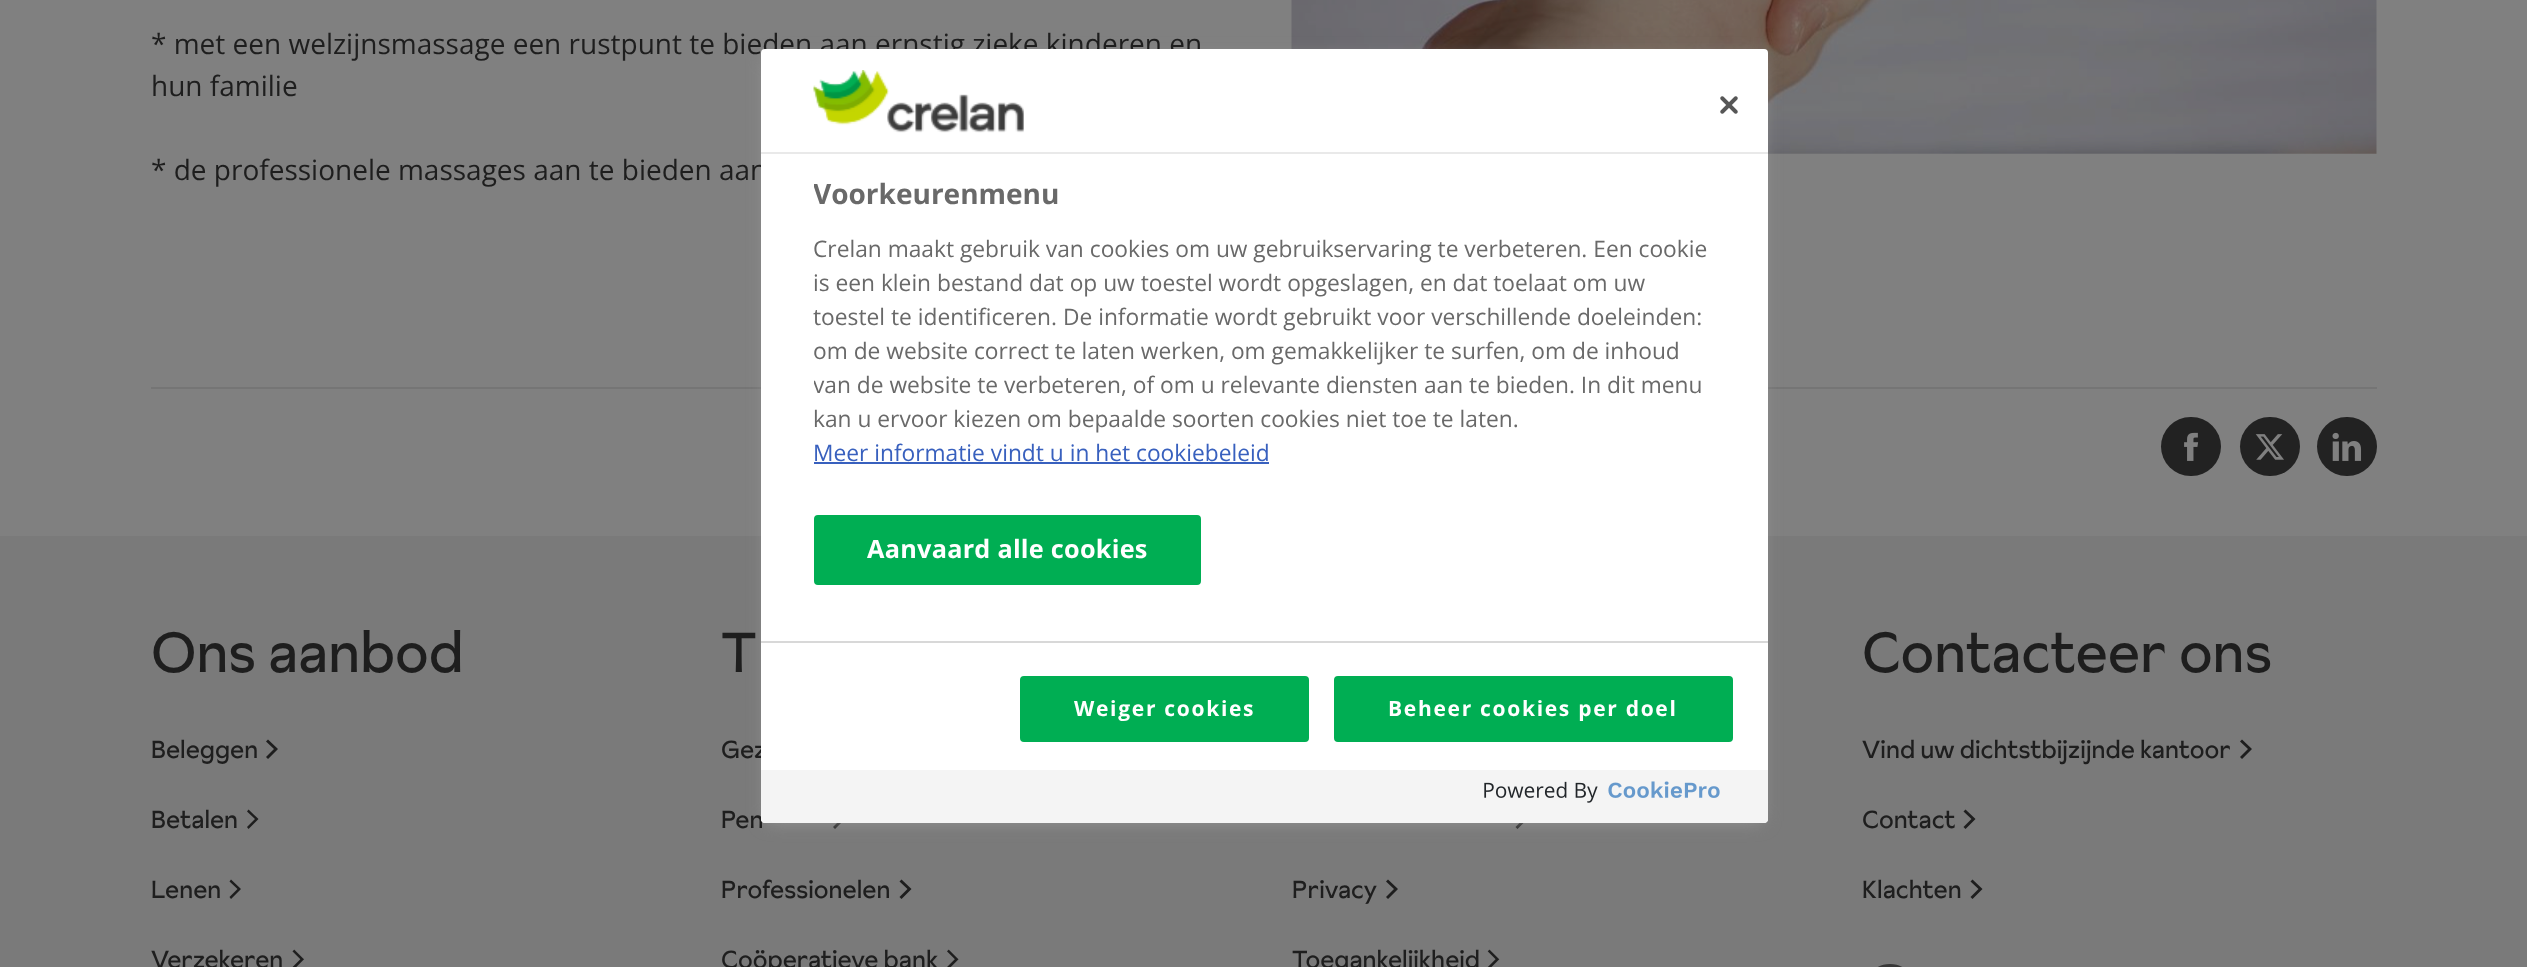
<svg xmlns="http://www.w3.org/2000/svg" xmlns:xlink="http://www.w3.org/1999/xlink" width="2527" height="967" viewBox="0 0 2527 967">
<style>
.cls-1{font:28px Open Sans;fill:#1e1e1e}
.cls-2{font:56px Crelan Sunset;fill:#1e1e1e}
.cls-3{font:24.5px Crelan Sunset;fill:#1e1e1e}
.cls-4{font:bold 28px Open Sans;fill:#696969}
.cls-5{font:22.75px Open Sans;fill:#696969}
.cls-6{font:22.75px Open Sans;fill:#3860be}
.cls-7{font:bold 25.25px Open Sans;letter-spacing:0.25px;fill:#ffffff}
.cls-8{font:bold 21px Open Sans;letter-spacing:1.7px;fill:#ffffff}
</style>
<defs>
<clipPath id="clip1"><rect x="814" y="156" width="948" height="474"/></clipPath>
</defs>
<rect width="100%" height="100%" fill="#808080"/>
<image xlink:href="image0.png" x="1291" y="0" width="1086" height="154"/>
<rect fill="#757575" x="151" y="387" width="2226" height="2"/>
<rect fill="#222222" x="2161" y="417" width="60" height="59" rx="29.5"/>
<image xlink:href="image1.png" x="2184" y="432" width="15" height="29"/>
<rect fill="#222222" x="2240" y="417" width="60" height="59" rx="29.5"/>
<image xlink:href="image2.png" x="2255" y="434" width="29" height="26"/>
<rect fill="#222222" x="2317" y="417" width="60" height="59" rx="29.5"/>
<image xlink:href="image3.png" x="2332" y="432" width="30" height="29"/>
<rect fill="#7a7a7a" x="0" y="536" width="2527" height="431"/>
<path fill="#1e1e1e" d="M278 749L268 739.5L266 741.5L274 749L266 757L268 759Z"/>
<path fill="#1e1e1e" d="M258.5 819L248.5 809.5L247 811.5L255 819L247 827L248.5 829Z"/>
<path fill="#1e1e1e" d="M241 889L231 879.5L229.5 881.5L237.5 889L229.5 897L231 899Z"/>
<image xlink:href="image4.png" x="292" y="949" width="12" height="18"/>
<path fill="#1e1e1e" d="M845 819L835 809.5L833 811.5L841 819L833 827L835 829Z"/>
<path fill="#1e1e1e" d="M911.5 889L901.5 879.5L899.5 881.5L907.5 889L899.5 897L901.5 899Z"/>
<image xlink:href="image5.png" x="947" y="949" width="12" height="18"/>
<path fill="#1e1e1e" d="M1527.5 819L1517.5 809.5L1515.5 811.5L1523.5 819L1515.5 827L1517.5 829Z"/>
<path fill="#1e1e1e" d="M1398 889L1388 879.5L1386 881.5L1394 889L1386 897L1388 899Z"/>
<image xlink:href="image6.png" x="1487" y="949" width="13" height="18"/>
<path fill="#1e1e1e" d="M2252 749L2242 739.5L2240 741.5L2248 749L2240 757L2242 759Z"/>
<path fill="#1e1e1e" d="M1975.5 819L1965.5 809.5L1963.5 811.5L1971.5 819L1963.5 827L1965.5 829Z"/>
<path fill="#1e1e1e" d="M1982.5 889L1972.5 879.5L1970.5 881.5L1978.5 889L1970.5 897L1972.5 899Z"/>
<path fill="#373737" d="M1895 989H1892V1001H1887V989H1884V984H1887C1887 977 1888 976 1896 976V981C1891 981 1892 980 1892 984H1896ZM1890 964C1858 964 1858 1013 1890 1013C1922 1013 1922 964 1890 964Z"/>
<rect fill="#999999" filter="blur(9px)" x="767" y="58" width="995" height="763"/>
<text class="cls-1"><tspan x="151" y="54">* met een welzijnsmassage een rustpunt te bieden aan ernstig zieke kinderen en</tspan><tspan x="151" y="96">hun familie</tspan></text>
<text class="cls-1" x="151" y="180">* de professionele massages aan te bieden aan</text>
<text class="cls-2" x="151" y="672">Ons aanbod</text>
<text class="cls-3" x="151" y="758">Beleggen</text>
<text class="cls-3" x="151" y="828">Betalen</text>
<text class="cls-3" x="151" y="898">Lenen</text>
<text class="cls-3" x="151" y="968">Verzekeren</text>
<text class="cls-2" x="721" y="672">T</text>
<text class="cls-3" x="721" y="758">Gez</text>
<text class="cls-3" x="721" y="828">Pen</text>
<text class="cls-3" x="721" y="898">Professionelen</text>
<text class="cls-3" x="721" y="968">Coöperatieve bank</text>
<text class="cls-3" x="1292" y="898">Privacy</text>
<text class="cls-3" x="1292" y="968">Toegankelijkheid</text>
<text class="cls-2" x="1862" y="672">Contacteer ons</text>
<text class="cls-3" x="1862" y="758">Vind uw dichtstbijzijnde kantoor</text>
<text class="cls-3" x="1862" y="828">Contact</text>
<text class="cls-3" x="1862" y="898">Klachten</text>
<rect fill="#ffffff" x="761" y="49" width="1007" height="774" rx="4"/>
<rect fill="#e9e9e9" x="761" y="152" width="1007" height="2"/>
<image xlink:href="image7.png" x="813" y="70" width="211" height="63"/>
<image xlink:href="image8.png" x="1720" y="96" width="18" height="18"/>
<g clip-path="url(#clip1)">
<text class="cls-4" x="813" y="204">Voorkeurenmenu</text>
</g>
<text class="cls-5"><tspan x="813" y="257">Crelan maakt gebruik van cookies om uw gebruikservaring te verbeteren. Een cookie</tspan><tspan x="813" y="291">is een klein bestand dat op uw toestel wordt opgeslagen, en dat toelaat om uw</tspan><tspan x="813" y="325">toestel te identificeren. De informatie wordt gebruikt voor verschillende doeleinden:</tspan><tspan x="813" y="359">om de website correct te laten werken, om gemakkelijker te surfen, om de inhoud</tspan></text>
<g clip-path="url(#clip1)">
<text class="cls-5" x="813" y="393">van de website te verbeteren, of om u relevante diensten aan te bieden. In dit menu</text>
</g>
<text class="cls-5" x="813" y="427">kan u ervoor kiezen om bepaalde soorten cookies niet toe te laten.</text>
<text class="cls-6" x="813" y="461">Meer informatie vindt u in het cookiebeleid</text>
<rect fill="#3860be" x="814" y="462" width="455" height="2"/>
<rect fill="#00ae53" stroke="#00ae53" stroke-width="2" x="815" y="516" width="385" height="68" rx="3"/>
<text class="cls-7" x="867" y="558">Aanvaard alle cookies</text>
<rect fill="#d8d8d8" x="761" y="641" width="1007" height="2"/>
<rect fill="#00ae53" stroke="#00ae53" stroke-width="2" x="1021" y="677" width="287" height="64" rx="3"/>
<text class="cls-8" x="1074" y="716">Weiger cookies</text>
<rect fill="#00ae53" stroke="#00ae53" stroke-width="2" x="1335" y="677" width="397" height="64" rx="3"/>
<text class="cls-8" x="1388" y="716">Beheer cookies per doel</text>
<path fill="#f4f4f4" d="M761 770H1768V819C1768 821 1766 823 1764 823H765C763 823 761 821 761 819Z"/>
<image xlink:href="image9.png" x="1484" y="781" width="236" height="22"/>
</svg>
